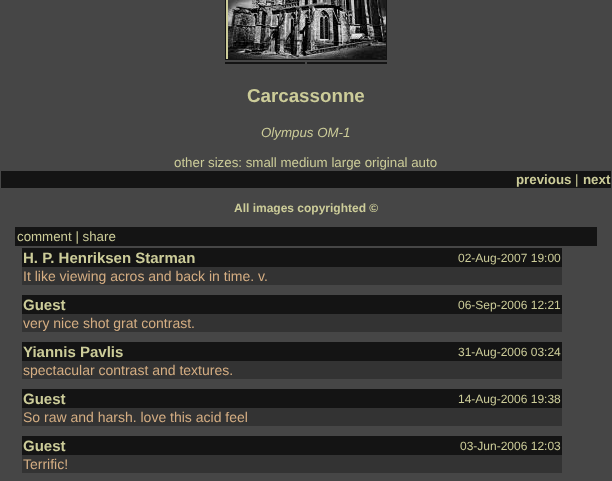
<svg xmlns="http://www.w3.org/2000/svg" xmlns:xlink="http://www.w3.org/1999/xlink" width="612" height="481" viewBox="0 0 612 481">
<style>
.cls-1{font:bold 18.75px Liberation Sans;fill:#cccc99}
.cls-2{font:italic 13.3px Liberation Sans;fill:#cccc99}
.cls-3{font:13.3px Liberation Sans;fill:#cccc99}
.cls-4{font:bold 13.3px Liberation Sans;fill:#cccc99}
.cls-5{font:bold 12px Liberation Sans;fill:#cccc99}
.cls-6{font:bold 15px Liberation Sans;fill:#cccc99}
.cls-7{font:12px Liberation Sans;fill:#cccc99}
.cls-8{font:14px Liberation Sans;fill:#d5ae83}
</style>
<defs>
<clipPath id="clip1"><rect x="226" y="0" width="160" height="59"/></clipPath>
</defs>
<rect width="100%" height="100%" fill="#464646"/>
<rect fill="#141414" x="225" y="0" width="162" height="60"/>
<rect fill="#141414" x="225" y="62" width="80" height="2"/>
<rect fill="#141414" x="307" y="62" width="80" height="2"/>
<g clip-path="url(#clip1)">
<rect fill="none" stroke="#cccc99" stroke-width="2" x="227" y="-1" width="162" height="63"/>
</g>
<image xlink:href="image0.png" x="228" y="0" width="158" height="59"/>
<rect fill="#141414" x="1" y="171" width="610" height="17"/>
<rect fill="#141414" x="15" y="227" width="582" height="19"/>
<rect fill="#141414" x="22" y="248" width="540" height="19"/>
<rect fill="#333333" x="22" y="267" width="540" height="18"/>
<rect fill="#141414" x="22" y="295" width="540" height="19"/>
<rect fill="#333333" x="22" y="314" width="540" height="18"/>
<rect fill="#141414" x="22" y="342" width="540" height="19"/>
<rect fill="#333333" x="22" y="361" width="540" height="18"/>
<rect fill="#141414" x="22" y="389" width="540" height="19"/>
<rect fill="#333333" x="22" y="408" width="540" height="18"/>
<rect fill="#141414" x="22" y="436" width="540" height="19"/>
<rect fill="#333333" x="22" y="455" width="540" height="18"/>
<text class="cls-1" x="247" y="102">Carcassonne</text>
<text class="cls-2" x="261" y="137">Olympus OM-1</text>
<text class="cls-3" x="174" y="167">other sizes: small medium large original auto</text>
<text class="cls-4" x="516" y="184">previous</text>
<text class="cls-3" x="575" y="184">|</text>
<text class="cls-4" x="583" y="184">next</text>
<text class="cls-5" x="234" y="212">All images copyrighted ©</text>
<text class="cls-3" x="17" y="241">comment | share</text>
<text class="cls-6" x="23" y="263">H. P. Henriksen Starman</text>
<text class="cls-7" x="458" y="262">02-Aug-2007 19:00</text>
<text class="cls-8" x="23" y="281">It like viewing acros and back in time. v.</text>
<text class="cls-6" x="23" y="310">Guest</text>
<text class="cls-7" x="458" y="309">06-Sep-2006 12:21</text>
<text class="cls-8" x="23" y="328">very nice shot grat contrast.</text>
<text class="cls-6" x="23" y="357">Yiannis Pavlis</text>
<text class="cls-7" x="458" y="356">31-Aug-2006 03:24</text>
<text class="cls-8" x="23" y="375">spectacular contrast and textures.</text>
<text class="cls-6" x="23" y="404">Guest</text>
<text class="cls-7" x="458" y="403">14-Aug-2006 19:38</text>
<text class="cls-8" x="23" y="422">So raw and harsh. love this acid feel</text>
<text class="cls-6" x="23" y="451">Guest</text>
<text class="cls-7" x="460" y="450">03-Jun-2006 12:03</text>
<text class="cls-8" x="23" y="469">Terrific!</text>
</svg>
